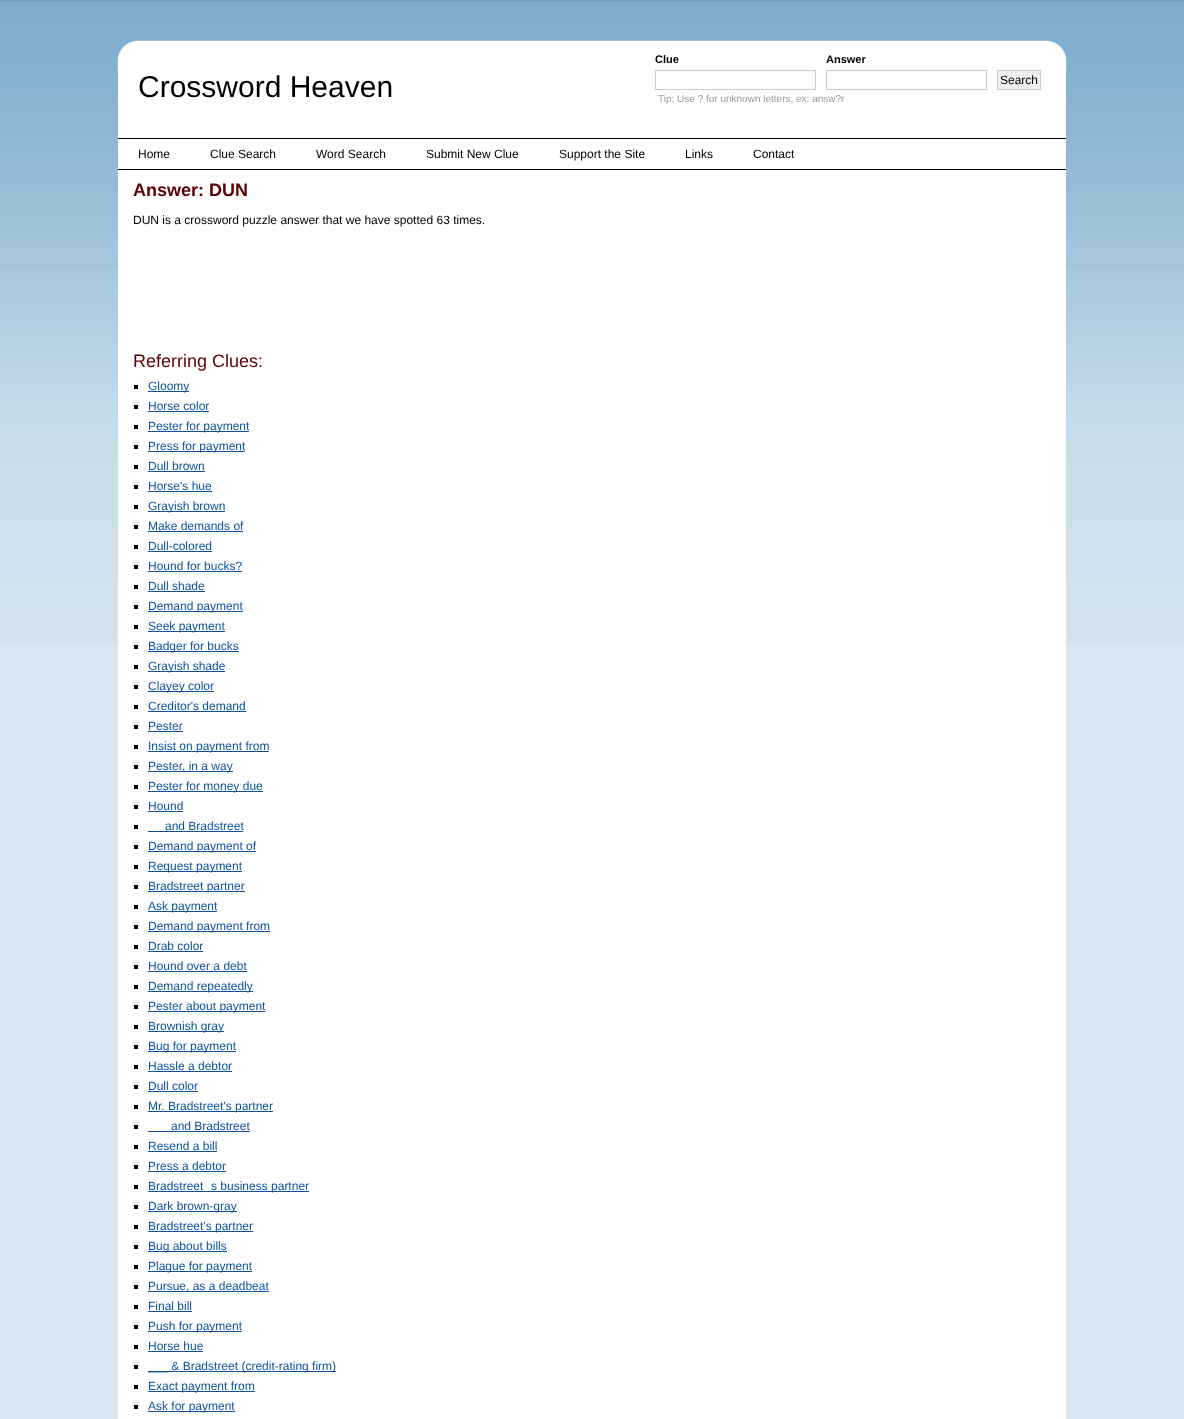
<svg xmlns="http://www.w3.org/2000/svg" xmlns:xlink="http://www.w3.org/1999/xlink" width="1184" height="1419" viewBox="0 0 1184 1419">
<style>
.cls-1{font:30px Liberation Sans;fill:#000000}
.cls-2{font:bold 11px Liberation Sans;fill:#000000}
.cls-3{font:12px Liberation Sans;fill:#000000}
.cls-4{font:10px Liberation Sans;fill:#999999}
.cls-5{font:bold 18px Liberation Sans;fill:#5e0000}
.cls-6{font:18px Liberation Sans;fill:#5e0000}
.cls-7{font:12px Liberation Sans;fill:#0c519f}
</style>
<rect width="100%" height="100%" fill="#d8e7f0"/>
<image xlink:href="image0.png" x="0" y="0" width="1184" height="645"/>
<image xlink:href="image1.png" x="117" y="40" width="950" height="30"/>
<rect fill="#ffffff" x="118" y="70" width="948" height="1349"/>
<rect fill="none" stroke="#cccccc" x="655.5" y="70.5" width="160" height="19"/>
<rect fill="none" stroke="#cccccc" x="826.5" y="70.5" width="160" height="19"/>
<rect fill="#efefef" stroke="#cccccc" x="997.5" y="70.5" width="43" height="19"/>
<rect fill="#000000" x="118" y="138" width="948" height="1"/>
<rect fill="#000000" x="118" y="169" width="948" height="1"/>
<rect fill="#000000" x="134" y="385" width="4" height="4"/>
<rect fill="#0c519f" x="148" y="391" width="41" height="1"/>
<rect fill="#000000" x="134" y="405" width="4" height="4"/>
<rect fill="#0c519f" x="148" y="411" width="61" height="1"/>
<rect fill="#000000" x="134" y="425" width="4" height="4"/>
<rect fill="#0c519f" x="148" y="431" width="101" height="1"/>
<rect fill="#000000" x="134" y="445" width="4" height="4"/>
<rect fill="#0c519f" x="148" y="451" width="97" height="1"/>
<rect fill="#000000" x="134" y="465" width="4" height="4"/>
<rect fill="#0c519f" x="148" y="471" width="57" height="1"/>
<rect fill="#000000" x="134" y="485" width="4" height="4"/>
<rect fill="#0c519f" x="148" y="491" width="64" height="1"/>
<rect fill="#000000" x="134" y="505" width="4" height="4"/>
<rect fill="#0c519f" x="148" y="511" width="77" height="1"/>
<rect fill="#000000" x="134" y="525" width="4" height="4"/>
<rect fill="#0c519f" x="148" y="531" width="95" height="1"/>
<rect fill="#000000" x="134" y="545" width="4" height="4"/>
<rect fill="#0c519f" x="148" y="551" width="64" height="1"/>
<rect fill="#000000" x="134" y="565" width="4" height="4"/>
<rect fill="#0c519f" x="148" y="571" width="94" height="1"/>
<rect fill="#000000" x="134" y="585" width="4" height="4"/>
<rect fill="#0c519f" x="148" y="591" width="57" height="1"/>
<rect fill="#000000" x="134" y="605" width="4" height="4"/>
<rect fill="#0c519f" x="148" y="611" width="95" height="1"/>
<rect fill="#000000" x="134" y="625" width="4" height="4"/>
<rect fill="#0c519f" x="148" y="631" width="77" height="1"/>
<rect fill="#000000" x="134" y="645" width="4" height="4"/>
<rect fill="#0c519f" x="148" y="651" width="91" height="1"/>
<rect fill="#000000" x="134" y="665" width="4" height="4"/>
<rect fill="#0c519f" x="148" y="671" width="77" height="1"/>
<rect fill="#000000" x="134" y="685" width="4" height="4"/>
<rect fill="#0c519f" x="148" y="691" width="66" height="1"/>
<rect fill="#000000" x="134" y="705" width="4" height="4"/>
<rect fill="#0c519f" x="148" y="711" width="98" height="1"/>
<rect fill="#000000" x="134" y="725" width="4" height="4"/>
<rect fill="#0c519f" x="148" y="731" width="35" height="1"/>
<rect fill="#000000" x="134" y="745" width="4" height="4"/>
<rect fill="#0c519f" x="148" y="751" width="121" height="1"/>
<rect fill="#000000" x="134" y="765" width="4" height="4"/>
<rect fill="#0c519f" x="148" y="771" width="85" height="1"/>
<rect fill="#000000" x="134" y="785" width="4" height="4"/>
<rect fill="#0c519f" x="148" y="791" width="115" height="1"/>
<rect fill="#000000" x="134" y="805" width="4" height="4"/>
<rect fill="#0c519f" x="148" y="811" width="35" height="1"/>
<rect fill="#000000" x="134" y="825" width="4" height="4"/>
<rect fill="#0c519f" x="148" y="831" width="95" height="1"/>
<rect fill="#000000" x="134" y="845" width="4" height="4"/>
<rect fill="#0c519f" x="148" y="851" width="108" height="1"/>
<rect fill="#000000" x="134" y="865" width="4" height="4"/>
<rect fill="#0c519f" x="148" y="871" width="94" height="1"/>
<rect fill="#000000" x="134" y="885" width="4" height="4"/>
<rect fill="#0c519f" x="148" y="891" width="97" height="1"/>
<rect fill="#000000" x="134" y="905" width="4" height="4"/>
<rect fill="#0c519f" x="148" y="911" width="69" height="1"/>
<rect fill="#000000" x="134" y="925" width="4" height="4"/>
<rect fill="#0c519f" x="148" y="931" width="122" height="1"/>
<rect fill="#000000" x="134" y="945" width="4" height="4"/>
<rect fill="#0c519f" x="148" y="951" width="55" height="1"/>
<rect fill="#000000" x="134" y="965" width="4" height="4"/>
<rect fill="#0c519f" x="148" y="971" width="99" height="1"/>
<rect fill="#000000" x="134" y="985" width="4" height="4"/>
<rect fill="#0c519f" x="148" y="991" width="105" height="1"/>
<rect fill="#000000" x="134" y="1005" width="4" height="4"/>
<rect fill="#0c519f" x="148" y="1011" width="117" height="1"/>
<rect fill="#000000" x="134" y="1025" width="4" height="4"/>
<rect fill="#0c519f" x="148" y="1031" width="76" height="1"/>
<rect fill="#000000" x="134" y="1045" width="4" height="4"/>
<rect fill="#0c519f" x="148" y="1051" width="88" height="1"/>
<rect fill="#000000" x="134" y="1065" width="4" height="4"/>
<rect fill="#0c519f" x="148" y="1071" width="84" height="1"/>
<rect fill="#000000" x="134" y="1085" width="4" height="4"/>
<rect fill="#0c519f" x="148" y="1091" width="50" height="1"/>
<rect fill="#000000" x="134" y="1105" width="4" height="4"/>
<rect fill="#0c519f" x="148" y="1111" width="125" height="1"/>
<rect fill="#000000" x="134" y="1125" width="4" height="4"/>
<rect fill="#0c519f" x="148" y="1131" width="102" height="1"/>
<rect fill="#000000" x="134" y="1145" width="4" height="4"/>
<rect fill="#0c519f" x="148" y="1151" width="69" height="1"/>
<rect fill="#000000" x="134" y="1165" width="4" height="4"/>
<rect fill="#0c519f" x="148" y="1171" width="78" height="1"/>
<rect fill="#000000" x="134" y="1185" width="4" height="4"/>
<rect fill="#0c519f" x="148" y="1191" width="161" height="1"/>
<rect fill="#000000" x="134" y="1205" width="4" height="4"/>
<rect fill="#0c519f" x="148" y="1211" width="89" height="1"/>
<rect fill="#000000" x="134" y="1225" width="4" height="4"/>
<rect fill="#0c519f" x="148" y="1231" width="105" height="1"/>
<rect fill="#000000" x="134" y="1245" width="4" height="4"/>
<rect fill="#0c519f" x="148" y="1251" width="79" height="1"/>
<rect fill="#000000" x="134" y="1265" width="4" height="4"/>
<rect fill="#0c519f" x="148" y="1271" width="104" height="1"/>
<rect fill="#000000" x="134" y="1285" width="4" height="4"/>
<rect fill="#0c519f" x="148" y="1291" width="121" height="1"/>
<rect fill="#000000" x="134" y="1305" width="4" height="4"/>
<rect fill="#0c519f" x="148" y="1311" width="44" height="1"/>
<rect fill="#000000" x="134" y="1325" width="4" height="4"/>
<rect fill="#0c519f" x="148" y="1331" width="94" height="1"/>
<rect fill="#000000" x="134" y="1345" width="4" height="4"/>
<rect fill="#0c519f" x="148" y="1351" width="55" height="1"/>
<rect fill="#000000" x="134" y="1365" width="4" height="4"/>
<rect fill="#0c519f" x="148" y="1371" width="188" height="1"/>
<rect fill="#000000" x="134" y="1385" width="4" height="4"/>
<rect fill="#0c519f" x="148" y="1391" width="107" height="1"/>
<rect fill="#000000" x="134" y="1405" width="4" height="4"/>
<rect fill="#0c519f" x="148" y="1411" width="87" height="1"/>
<text class="cls-1" x="138" y="97">Crossword Heaven</text>
<text class="cls-2" x="655" y="63">Clue</text>
<text class="cls-2" x="826" y="63">Answer</text>
<text class="cls-3" x="1000" y="84">Search</text>
<text class="cls-4" x="658" y="102">Tip: Use ? for unknown letters, ex: answ?r</text>
<text class="cls-3" x="138" y="158">Home</text>
<text class="cls-3" x="210" y="158">Clue Search</text>
<text class="cls-3" x="316" y="158">Word Search</text>
<text class="cls-3" x="426" y="158">Submit New Clue</text>
<text class="cls-3" x="559" y="158">Support the Site</text>
<text class="cls-3" x="685" y="158">Links</text>
<text class="cls-3" x="753" y="158">Contact</text>
<text class="cls-5" x="133" y="196">Answer: DUN</text>
<text class="cls-3" x="133" y="224">DUN is a crossword puzzle answer that we have spotted 63 times.</text>
<text class="cls-6" x="133" y="367">Referring Clues:</text>
<text class="cls-7"><tspan x="148" y="390">Gloomy</tspan><tspan x="148" y="410">Horse color</tspan><tspan x="148" y="430">Pester for payment</tspan><tspan x="148" y="450">Press for payment</tspan><tspan x="148" y="470">Dull brown</tspan><tspan x="148" y="490">Horse's hue</tspan><tspan x="148" y="510">Grayish brown</tspan><tspan x="148" y="530">Make demands of</tspan><tspan x="148" y="550">Dull-colored</tspan><tspan x="148" y="570">Hound for bucks?</tspan><tspan x="148" y="590">Dull shade</tspan><tspan x="148" y="610">Demand payment</tspan><tspan x="148" y="630">Seek payment</tspan><tspan x="148" y="650">Badger for bucks</tspan><tspan x="148" y="670">Grayish shade</tspan><tspan x="148" y="690">Clayey color</tspan><tspan x="148" y="710">Creditor's demand</tspan><tspan x="148" y="730">Pester</tspan><tspan x="148" y="750">Insist on payment from</tspan><tspan x="148" y="770">Pester, in a way</tspan><tspan x="148" y="790">Pester for money due</tspan><tspan x="148" y="810">Hound</tspan></text>
<text class="cls-7" x="165" y="830">and Bradstreet</text>
<text class="cls-7"><tspan x="148" y="850">Demand payment of</tspan><tspan x="148" y="870">Request payment</tspan><tspan x="148" y="890">Bradstreet partner</tspan><tspan x="148" y="910">Ask payment</tspan><tspan x="148" y="930">Demand payment from</tspan><tspan x="148" y="950">Drab color</tspan><tspan x="148" y="970">Hound over a debt</tspan><tspan x="148" y="990">Demand repeatedly</tspan><tspan x="148" y="1010">Pester about payment</tspan><tspan x="148" y="1030">Brownish gray</tspan><tspan x="148" y="1050">Bug for payment</tspan><tspan x="148" y="1070">Hassle a debtor</tspan><tspan x="148" y="1090">Dull color</tspan><tspan x="148" y="1110">Mr. Bradstreet's partner</tspan></text>
<text class="cls-7" x="171" y="1130">and Bradstreet</text>
<text class="cls-7"><tspan x="148" y="1150">Resend a bill</tspan><tspan x="148" y="1170">Press a debtor</tspan><tspan x="148" y="1190">Bradstreet</tspan></text>
<text class="cls-7" x="211" y="1190">s business partner</text>
<text class="cls-7"><tspan x="148" y="1210">Dark brown-gray</tspan><tspan x="148" y="1230">Bradstreet's partner</tspan><tspan x="148" y="1250">Bug about bills</tspan><tspan x="148" y="1270">Plague for payment</tspan><tspan x="148" y="1290">Pursue, as a deadbeat</tspan><tspan x="148" y="1310">Final bill</tspan><tspan x="148" y="1330">Push for payment</tspan><tspan x="148" y="1350">Horse hue</tspan><tspan x="148" y="1370">___ &amp; Bradstreet (credit-rating firm)</tspan><tspan x="148" y="1390">Exact payment from</tspan><tspan x="148" y="1410">Ask for payment</tspan></text>
</svg>
